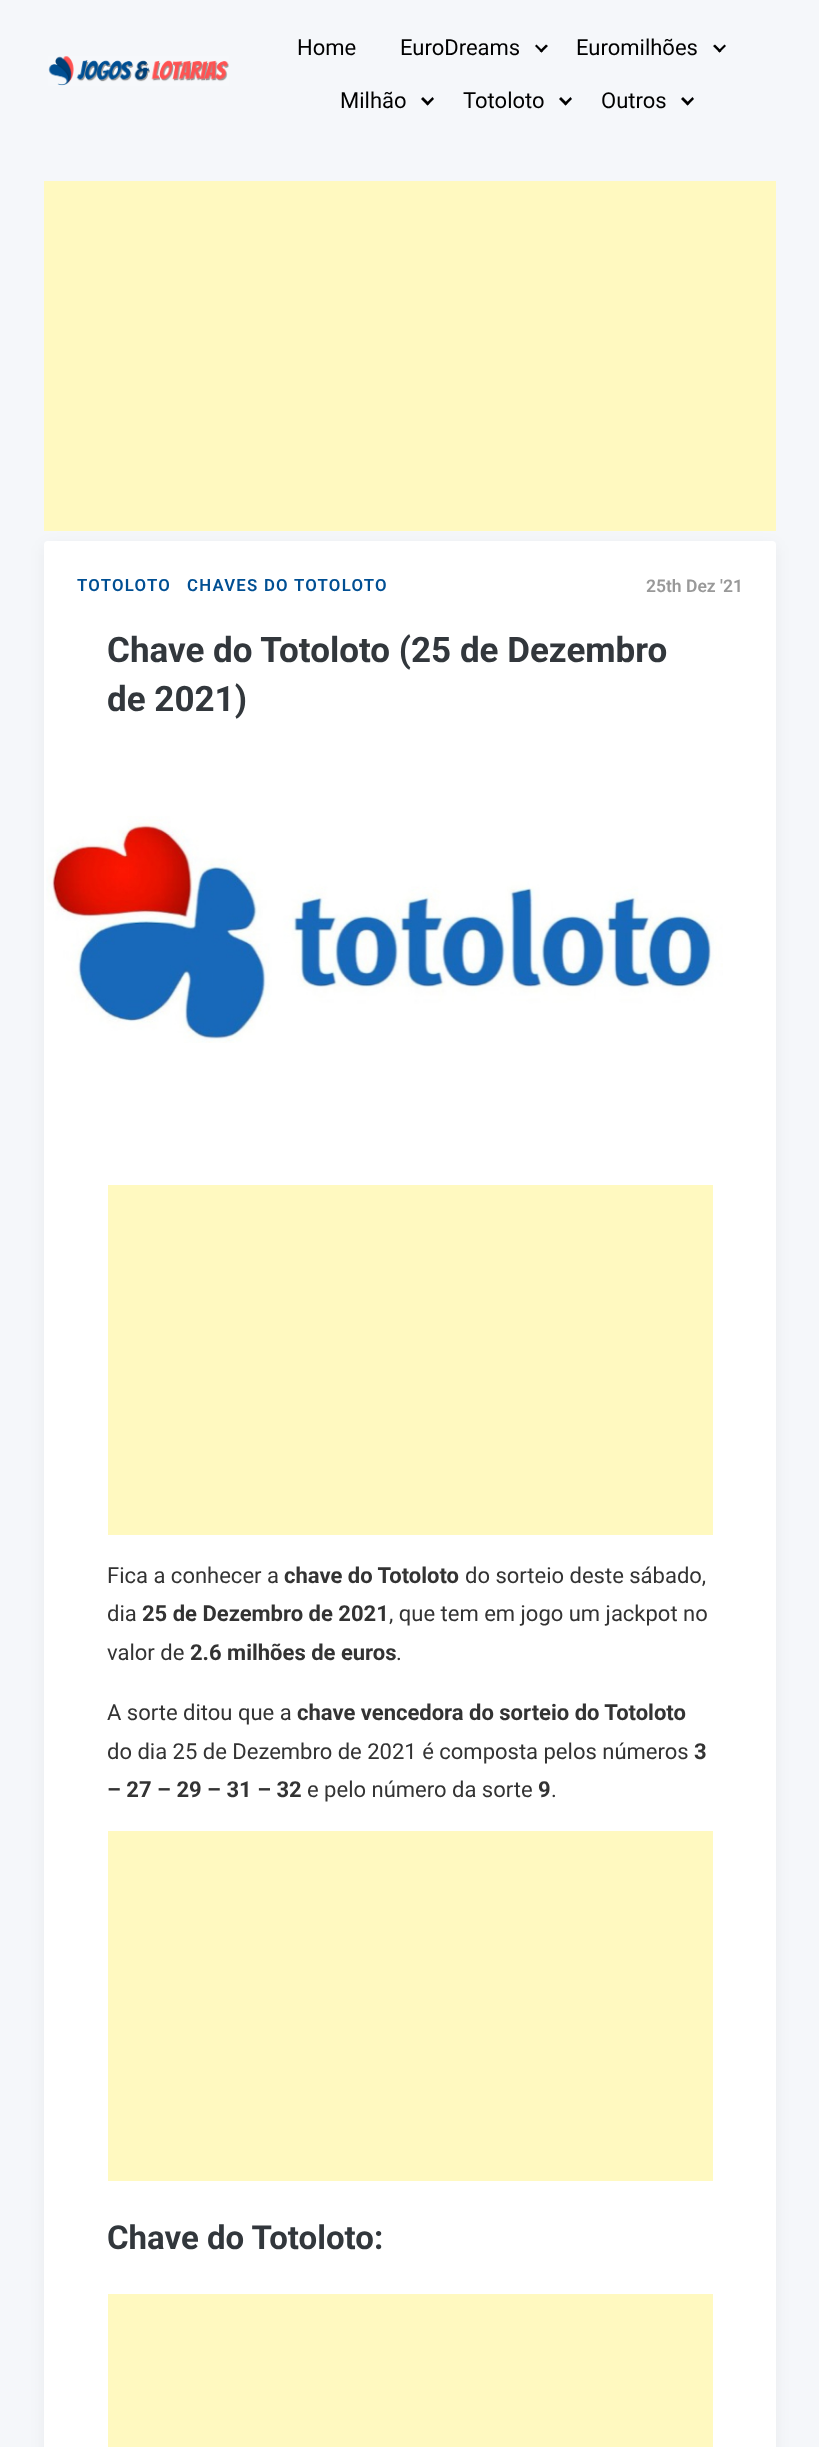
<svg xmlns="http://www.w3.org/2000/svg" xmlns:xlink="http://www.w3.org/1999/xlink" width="819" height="2447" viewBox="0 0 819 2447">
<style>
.cls-1{font:22px Roboto;fill:#000000}
.cls-2{font:600 16.75px Roboto;letter-spacing:1.25px;fill:#004f93}
.cls-3{font:600 17.5px Roboto;fill:#999999}
.cls-4{font:bold 35px Roboto;fill:#32373c}
.cls-5{font:22px Roboto;fill:#333333}
.cls-6{font:bold 22px Roboto;fill:#333333}
.cls-7{font:bold 33px Roboto;fill:#32373c}
</style>
<rect width="100%" height="100%" fill="#f5f7fa"/>
<image xlink:href="image0.png" x="48" y="56" width="181" height="30"/>
<path fill="#000000" d="M546 44.5L548 46L541.5 52.5L539.5 51Z"/>
<path fill="#000000" d="M536.5 44.5L543 51L541.5 52.5L535 46Z"/>
<path fill="#000000" d="M724.5 44.5L726 46L719.5 52.5L718 51Z"/>
<path fill="#000000" d="M715 44.5L721.5 51L719.5 52.5L713 46Z"/>
<path fill="#000000" d="M432.5 97L434 99L427.5 105.5L426 103.5Z"/>
<path fill="#000000" d="M423 97L429.5 103.5L427.5 105.5L421 99Z"/>
<path fill="#000000" d="M570.5 97L572 99L565.5 105.5L564 103.5Z"/>
<path fill="#000000" d="M561 97L567.5 103.5L565.5 105.5L559 99Z"/>
<path fill="#000000" d="M692.5 97L694 99L687.5 105.5L686 103.5Z"/>
<path fill="#000000" d="M683 97L689.5 103.5L687.5 105.5L681 99Z"/>
<rect fill="#fff9c0" x="44" y="181" width="732" height="350"/>
<rect fill="#000000" fill-opacity="0.05" filter="blur(7.5px)" x="44" y="545" width="732" height="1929" rx="4"/>
<rect fill="#ffffff" x="44" y="541" width="732" height="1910" rx="4"/>
<image xlink:href="image1.png" x="46" y="816" width="677" height="227"/>
<rect fill="#fff9c0" x="108" y="1185" width="605" height="350"/>
<rect fill="#fff9c0" x="108" y="1831" width="605" height="350"/>
<rect fill="#fff9c0" x="108" y="2294" width="605" height="153"/>
<text class="cls-1" x="297" y="55">Home</text>
<text class="cls-1" x="400" y="55">EuroDreams</text>
<text class="cls-1" x="576" y="55">Euromilhões</text>
<text class="cls-1" x="340" y="108">Milhão</text>
<text class="cls-1" x="463" y="108">Totoloto</text>
<text class="cls-1" x="601" y="108">Outros</text>
<text class="cls-2" x="77" y="591">TOTOLOTO</text>
<text class="cls-2" x="187" y="591">CHAVES DO TOTOLOTO</text>
<text class="cls-3" x="646" y="592">25th Dez '21</text>
<text class="cls-4"><tspan x="107" y="662">Chave do Totoloto (25 de Dezembro</tspan><tspan x="107" y="711">de 2021)</tspan></text>
<text class="cls-5" x="107" y="1583">Fica a conhecer a</text>
<text class="cls-6" x="284" y="1583">chave do Totoloto</text>
<text class="cls-5" x="465" y="1583">do sorteio deste sábado,</text>
<text class="cls-5" x="107" y="1621">dia</text>
<text class="cls-6" x="142" y="1621">25 de Dezembro de 2021</text>
<text class="cls-5" x="389" y="1621">, que tem em jogo um jackpot no</text>
<text class="cls-5" x="107" y="1660">valor de</text>
<text class="cls-6" x="190" y="1660">2.6 milhões de euros</text>
<text class="cls-5" x="396" y="1660">.</text>
<text class="cls-5" x="107" y="1720">A sorte ditou que a</text>
<text class="cls-6" x="297" y="1720">chave vencedora do sorteio do Totoloto</text>
<text class="cls-5" x="107" y="1759">do dia 25 de Dezembro de 2021 é composta pelos números</text>
<text class="cls-6" x="694" y="1759">3</text>
<text class="cls-6" x="107" y="1797">– 27 – 29 – 31 – 32</text>
<text class="cls-5" x="307" y="1797">e pelo número da sorte</text>
<text class="cls-6" x="538" y="1797">9</text>
<text class="cls-5" x="551" y="1797">.</text>
<text class="cls-7" x="107" y="2249">Chave do Totoloto:</text>
</svg>
